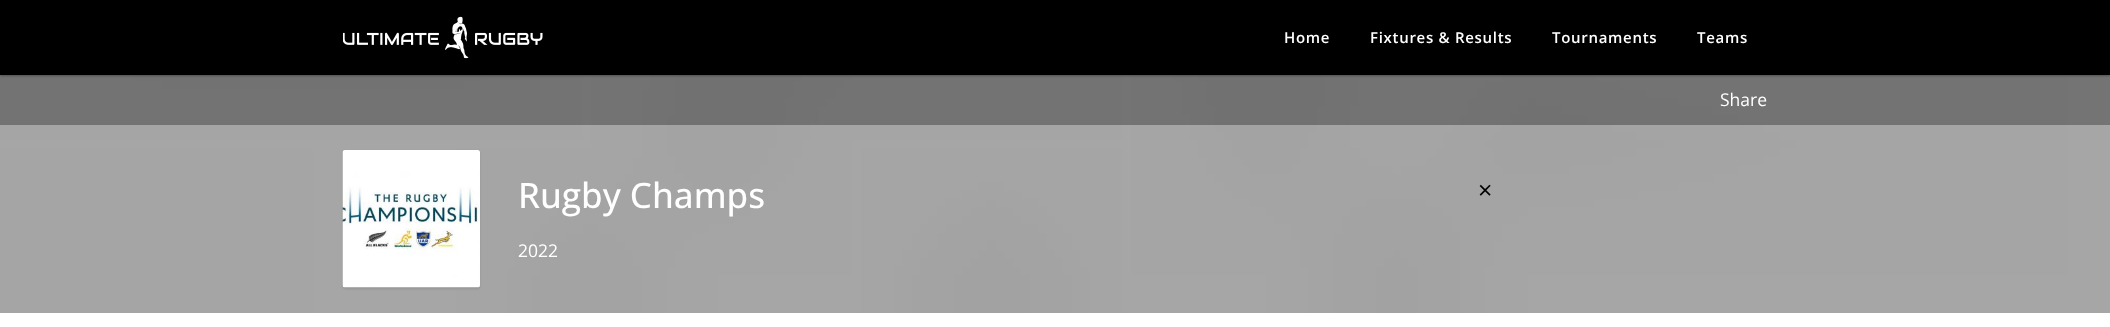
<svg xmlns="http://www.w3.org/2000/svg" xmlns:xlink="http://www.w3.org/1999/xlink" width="2110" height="327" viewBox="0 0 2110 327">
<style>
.cls-1{font:600 15px Open Sans;letter-spacing:0.7px;fill:#ffffff}
.cls-2{font:17.5px Open Sans;fill:#ffffff}
.cls-3{font:500 35px Open Sans;fill:#ffffff}
.cls-4{font:25px Open Sans;fill:#000000}
</style>
<rect width="100%" height="100%" fill="#222222"/>
<image xlink:href="image1.png" x="0" y="75" width="2110" height="238"/>
<rect fill="#000000" fill-opacity="0.3" x="0" y="75" width="2110" height="50"/>
<rect fill="#000000" fill-opacity="0.3" filter="blur(1px)" x="0" y="1" width="2110" height="75"/>
<rect fill="#000000" x="0" y="0" width="2110" height="75"/>
<image xlink:href="image0.png" x="343" y="16" width="200" height="43"/>
<rect fill="#000000" fill-opacity="0.1" filter="blur(1px)" x="343" y="151" width="137" height="138" rx="2.5"/>
<image xlink:href="image2.png" x="342" y="150" width="138" height="138"/>
<rect fill="#ffffff" x="0" y="313" width="2110" height="14"/>
<text class="cls-1" x="1284" y="43">Home</text>
<text class="cls-1" x="1370" y="43">Fixtures &amp; Results</text>
<text class="cls-1" x="1552" y="43">Tournaments</text>
<text class="cls-1" x="1697" y="43">Teams</text>
<text class="cls-2" x="1720" y="106">Share</text>
<text class="cls-3" x="518" y="208">Rugby Champs</text>
<text class="cls-2" x="518" y="257">2022</text>
<text class="cls-4" x="1478" y="199">×</text>
</svg>
